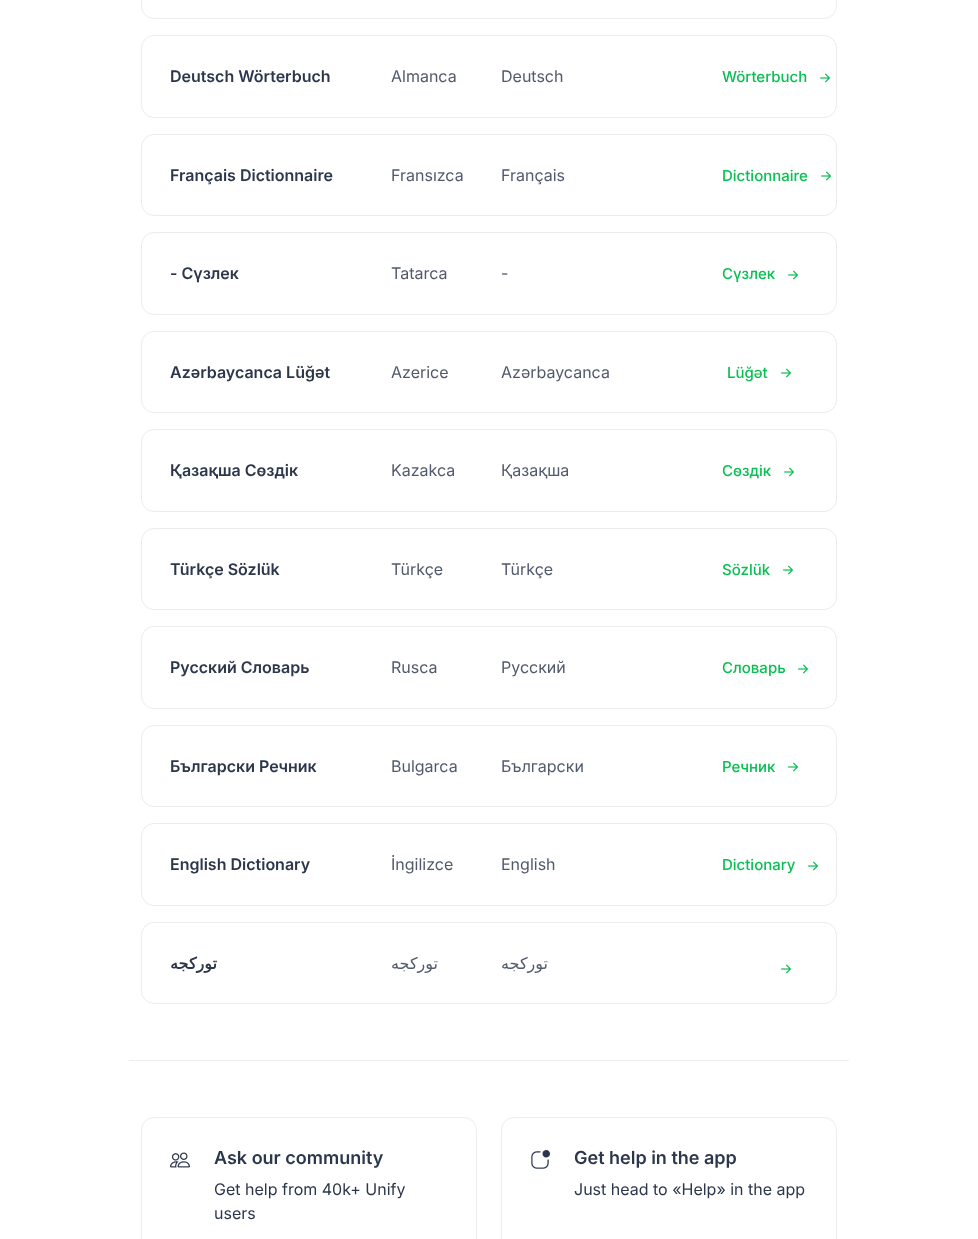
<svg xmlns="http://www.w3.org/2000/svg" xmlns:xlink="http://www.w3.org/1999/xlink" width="978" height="1239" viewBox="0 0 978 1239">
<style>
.cls-1{font:600 16px Inter;fill:#2d374b}
.cls-2{font:16px Inter;fill:#51596c}
.cls-3{font:500 15px Inter;fill:#0abf53}
.cls-4{font:bold 16px DejaVu Sans;direction:rtl;fill:#2d374b}
.cls-5{font:16px DejaVu Sans;direction:rtl;fill:#51596c}
.cls-6{font:600 18px Inter;fill:#2d374b}
.cls-7{font:16px Inter;fill:#2d374b}
</style>
<rect width="100%" height="100%" fill="#ffffff"/>
<rect fill="none" stroke="#eaecef" x="141.5" y="-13.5" width="695" height="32" rx="12.5"/>
<rect fill="none" stroke="#eaecef" x="141.5" y="35.5" width="695" height="82" rx="12.5"/>
<image xlink:href="image0.png" x="820" y="73" width="10" height="10"/>
<rect fill="none" stroke="#eaecef" x="141.5" y="134.5" width="695" height="81" rx="12.5"/>
<image xlink:href="image0.png" x="821" y="171" width="10" height="10"/>
<rect fill="none" stroke="#eaecef" x="141.5" y="232.5" width="695" height="82" rx="12.5"/>
<image xlink:href="image0.png" x="788" y="270" width="10" height="10"/>
<rect fill="none" stroke="#eaecef" x="141.5" y="331.5" width="695" height="81" rx="12.5"/>
<image xlink:href="image0.png" x="781" y="368" width="10" height="10"/>
<rect fill="none" stroke="#eaecef" x="141.5" y="429.5" width="695" height="82" rx="12.5"/>
<image xlink:href="image0.png" x="784" y="467" width="10" height="10"/>
<rect fill="none" stroke="#eaecef" x="141.5" y="528.5" width="695" height="81" rx="12.5"/>
<image xlink:href="image0.png" x="783" y="565" width="10" height="10"/>
<rect fill="none" stroke="#eaecef" x="141.5" y="626.5" width="695" height="82" rx="12.5"/>
<image xlink:href="image0.png" x="798" y="664" width="10" height="10"/>
<rect fill="none" stroke="#eaecef" x="141.5" y="725.5" width="695" height="81" rx="12.5"/>
<image xlink:href="image0.png" x="788" y="762" width="10" height="10"/>
<rect fill="none" stroke="#eaecef" x="141.5" y="823.5" width="695" height="82" rx="12.5"/>
<image xlink:href="image0.png" x="808" y="861" width="10" height="10"/>
<rect fill="none" stroke="#eaecef" x="141.5" y="922.5" width="695" height="81" rx="12.5"/>
<image xlink:href="image0.png" x="781" y="964" width="10" height="10"/>
<rect fill="#eaecef" x="129" y="1060" width="720" height="1"/>
<rect fill="none" stroke="#eaecef" x="141.5" y="1117.5" width="335" height="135" rx="12.5"/>
<image xlink:href="image1.png" x="170" y="1152" width="20" height="16"/>
<rect fill="none" stroke="#eaecef" x="501.5" y="1117.5" width="335" height="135" rx="12.5"/>
<image xlink:href="image2.png" x="531" y="1150" width="19" height="19"/>
<text class="cls-1" x="170" y="82">Deutsch Wörterbuch</text>
<text class="cls-2" x="391" y="82">Almanca</text>
<text class="cls-2" x="501" y="82">Deutsch</text>
<text class="cls-3" x="722" y="82">Wörterbuch</text>
<text class="cls-1" x="170" y="181">Français Dictionnaire</text>
<text class="cls-2" x="391" y="181">Fransızca</text>
<text class="cls-2" x="501" y="181">Français</text>
<text class="cls-3" x="722" y="181">Dictionnaire</text>
<text class="cls-1" x="170" y="279">- Сүзлек</text>
<text class="cls-2" x="391" y="279">Tatarca</text>
<text class="cls-2" x="501" y="279">-</text>
<text class="cls-3" x="722" y="279">Сүзлек</text>
<text class="cls-1" x="170" y="378">Azərbaycanca Lüğət</text>
<text class="cls-2" x="391" y="378">Azerice</text>
<text class="cls-2" x="501" y="378">Azərbaycanca</text>
<text class="cls-3" x="727" y="378">Lüğət</text>
<text class="cls-1" x="170" y="476">Қазақша Сөздік</text>
<text class="cls-2" x="391" y="476">Kazakca</text>
<text class="cls-2" x="501" y="476">Қазақша</text>
<text class="cls-3" x="722" y="476">Сөздік</text>
<text class="cls-1" x="170" y="575">Türkçe Sözlük</text>
<text class="cls-2" x="391" y="575">Türkçe</text>
<text class="cls-2" x="501" y="575">Türkçe</text>
<text class="cls-3" x="722" y="575">Sözlük</text>
<text class="cls-1" x="170" y="673">Русский Словарь</text>
<text class="cls-2" x="391" y="673">Rusca</text>
<text class="cls-2" x="501" y="673">Русский</text>
<text class="cls-3" x="722" y="673">Словарь</text>
<text class="cls-1" x="170" y="772">Български Речник</text>
<text class="cls-2" x="391" y="772">Bulgarca</text>
<text class="cls-2" x="501" y="772">Български</text>
<text class="cls-3" x="722" y="772">Речник</text>
<text class="cls-1" x="170" y="870">English Dictionary</text>
<text class="cls-2" x="391" y="870">İngilizce</text>
<text class="cls-2" x="501" y="870">English</text>
<text class="cls-3" x="722" y="870">Dictionary</text>
<text class="cls-4" x="217" y="969">توركجه</text>
<text class="cls-5" x="438" y="969">توركجه</text>
<text class="cls-5" x="548" y="969">توركجه</text>
<text class="cls-6" x="214" y="1164">Ask our community</text>
<text class="cls-7"><tspan x="214" y="1195">Get help from 40k+ Unify</tspan><tspan x="214" y="1219">users</tspan></text>
<text class="cls-6" x="574" y="1164">Get help in the app</text>
<text class="cls-7" x="574" y="1195">Just head to «Help» in the app</text>
</svg>
